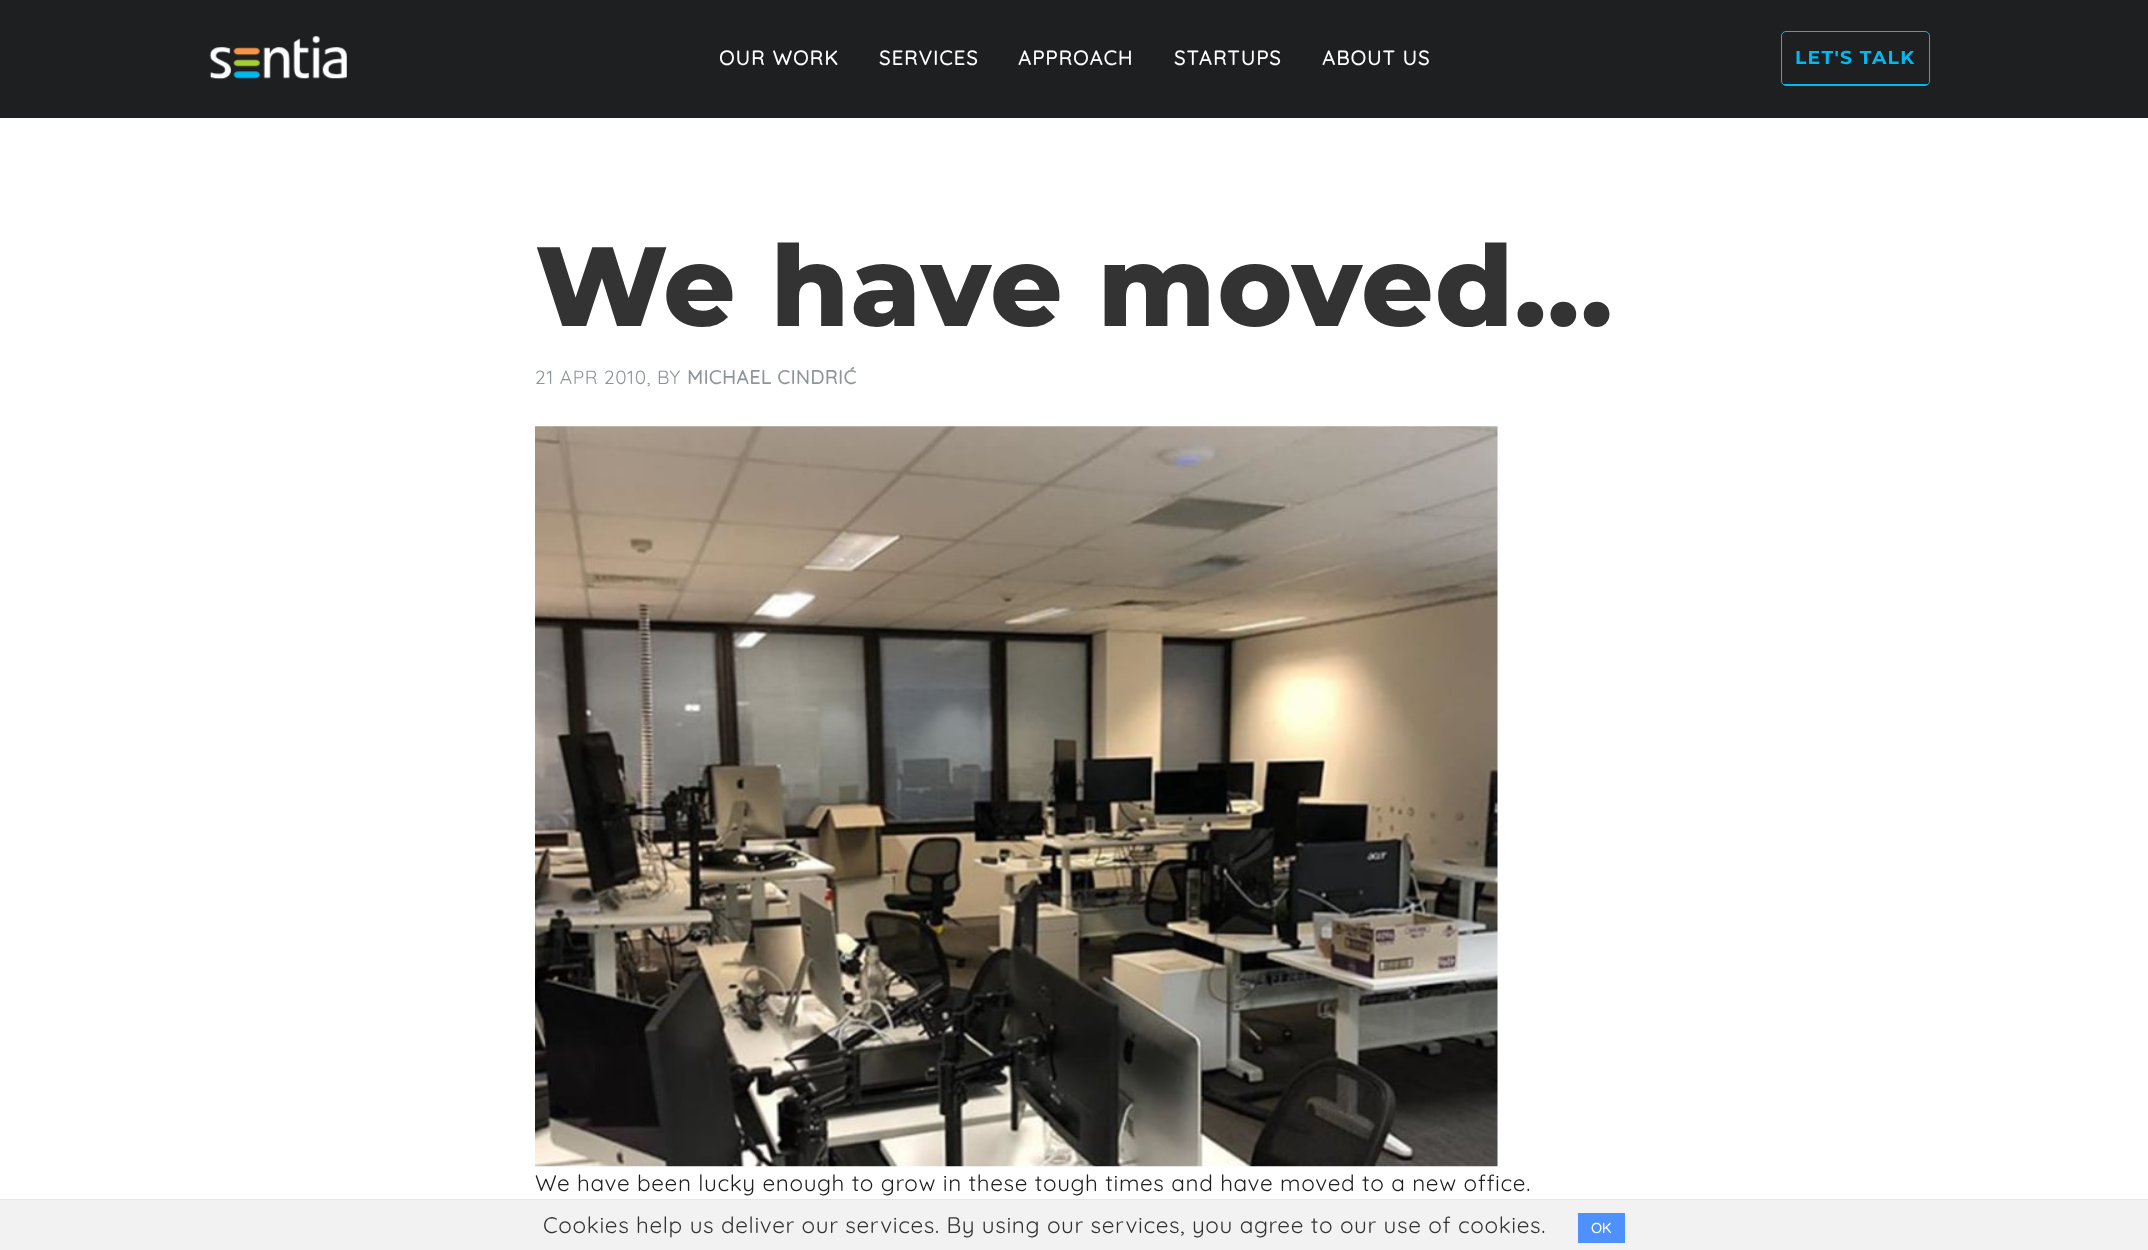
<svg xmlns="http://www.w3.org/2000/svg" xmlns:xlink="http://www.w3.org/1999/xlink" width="2148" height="1250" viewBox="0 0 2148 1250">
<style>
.cls-1{font:bold 20px Quicksand;letter-spacing:1.25px;fill:#ffffff}
.cls-2{font:bold 18.75px Montserrat;letter-spacing:1.25px;fill:#00b9f0}
.cls-3{font:800 112.5px Montserrat;letter-spacing:1.25px;fill:#333333}
.cls-4{font:300 19.1px Quicksand;letter-spacing:0.62px;fill:#8e959a}
.cls-5{font:bold 19.1px Quicksand;letter-spacing:0.62px;fill:#8e959a}
.cls-6{font:300 22.5px Quicksand;letter-spacing:0.62px;fill:#1e1f20}
.cls-7{font:300 22.5px Quicksand;letter-spacing:0.62px;fill:#333333}
.cls-8{font:bold 14px Quicksand;fill:#ffffff}
</style>
<rect width="100%" height="100%" fill="#ffffff"/>
<rect fill="#1e1f20" x="0" y="0" width="2148" height="118"/>
<image xlink:href="image0.png" x="209" y="36" width="138" height="44"/>
<rect fill="none" stroke="#00b9f0" x="1781.5" y="31.5" width="148" height="54" rx="4.5"/>
<rect fill="#00b9f0" x="1784" y="84" width="144" height="1"/>
<image xlink:href="image1.png" x="535" y="426" width="963" height="741"/>
<rect fill="#f2f2f2" x="0" y="1200" width="2148" height="50"/>
<rect fill="#e4e4e4" x="0" y="1199" width="2148" height="1"/>
<rect fill="#4d90fe" x="1578" y="1213" width="47" height="30"/>
<text class="cls-1" x="719" y="65">OUR WORK</text>
<text class="cls-1" x="879" y="65">SERVICES</text>
<text class="cls-1" x="1018" y="65">APPROACH</text>
<text class="cls-1" x="1174" y="65">STARTUPS</text>
<text class="cls-1" x="1322" y="65">ABOUT US</text>
<text class="cls-2" x="1795" y="64">LET'S TALK</text>
<text class="cls-3" x="535" y="326">We have moved...</text>
<text class="cls-4" x="535" y="384">21 APR 2010, BY</text>
<text class="cls-5" x="687" y="384">MICHAEL CINDRIĆ</text>
<text class="cls-6" x="535" y="1191">We have been lucky enough to grow in these tough times and have moved to a new office.</text>
<text class="cls-7" x="543" y="1233">Cookies help us deliver our services. By using our services, you agree to our use of cookies.</text>
<text class="cls-8" x="1591" y="1233">OK</text>
</svg>
